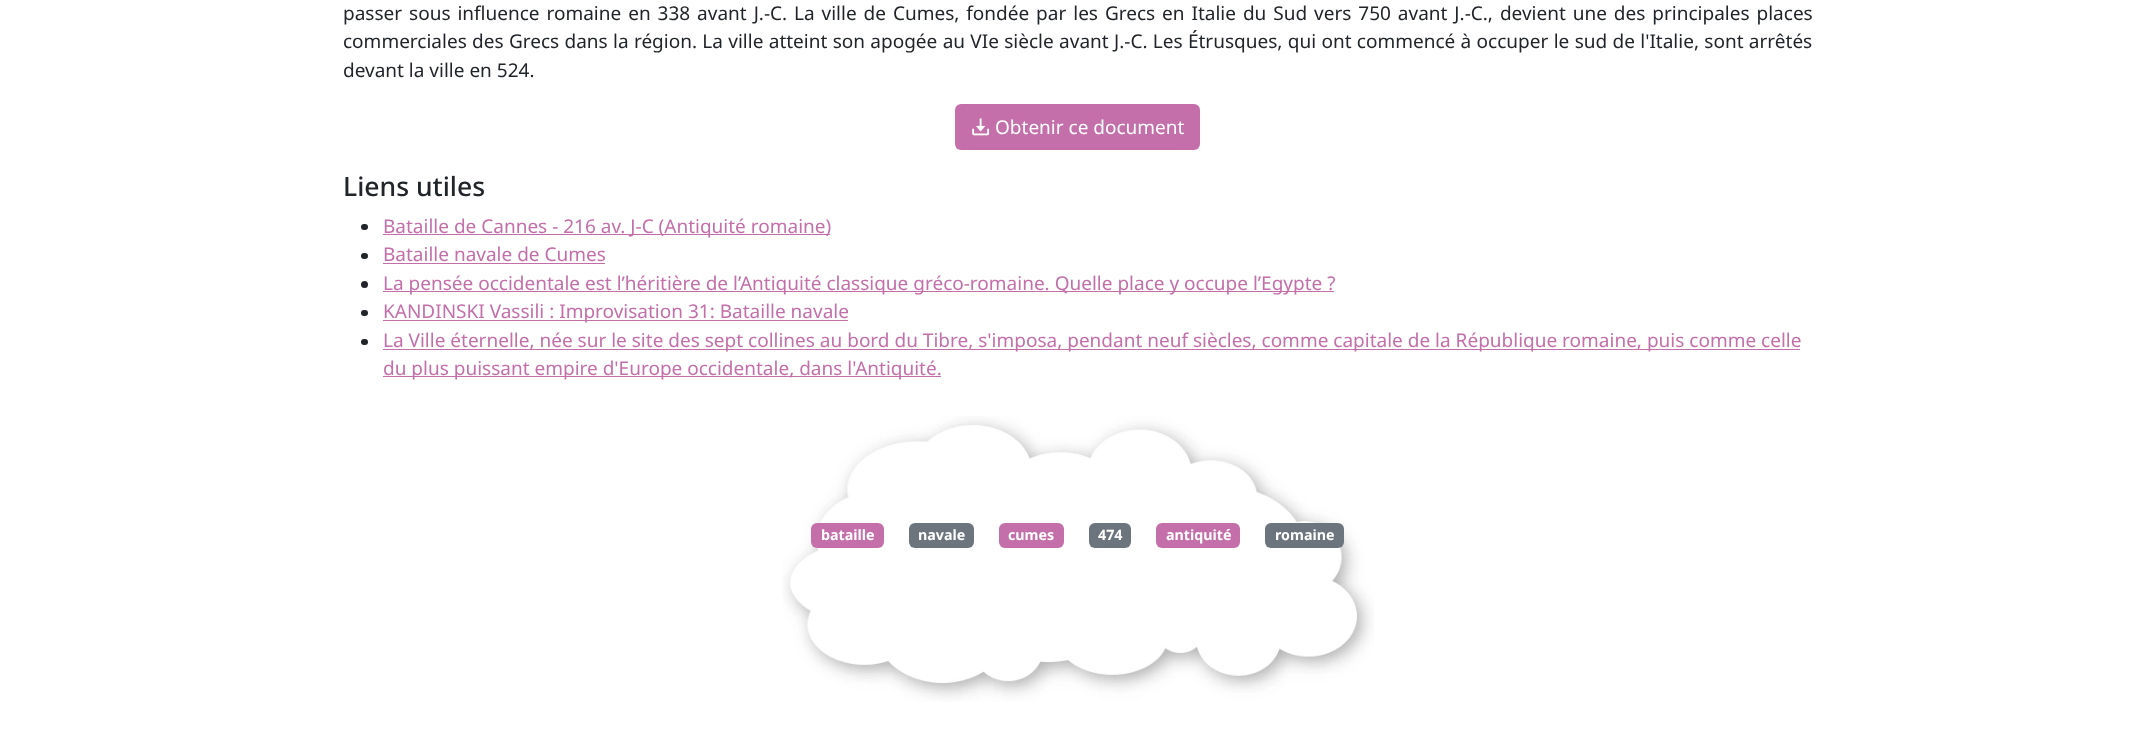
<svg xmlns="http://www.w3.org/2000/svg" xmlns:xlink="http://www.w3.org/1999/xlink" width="2155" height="737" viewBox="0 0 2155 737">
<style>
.cls-1{font:19px Noto Sans;fill:#212529}
.cls-2{font:19px Noto Sans;fill:#ffffff}
.cls-3{font:500 26.5px Noto Sans;fill:#212529}
.cls-4{font:19px Noto Sans;fill:#c46fa9}
.cls-5{font:bold 14.25px Noto Sans;fill:#ffffff}
</style>
<rect width="100%" height="100%" fill="#ffffff"/>
<rect fill="#c46fa9" x="955" y="104" width="245" height="46" rx="6"/>
<image xlink:href="image0.png" x="972" y="118" width="18" height="18"/>
<rect fill="#212529" x="361" y="224" width="7" height="6" rx="3"/>
<rect fill="#c46fa9" x="383" y="234" width="447" height="1"/>
<rect fill="#212529" x="361" y="253" width="7" height="6" rx="3"/>
<rect fill="#c46fa9" x="383" y="263" width="222" height="1"/>
<circle fill="#212529" cx="364.5" cy="284.5" r="3.5"/>
<rect fill="#c46fa9" x="383" y="291" width="951" height="1"/>
<rect fill="#212529" x="361" y="310" width="7" height="6" rx="3"/>
<rect fill="#c46fa9" x="383" y="320" width="465" height="1"/>
<rect fill="#212529" x="361" y="339" width="7" height="6" rx="3"/>
<rect fill="#c46fa9" x="383" y="349" width="1417" height="1"/>
<rect fill="#c46fa9" x="383" y="376" width="558" height="1"/>
<image xlink:href="image1.png" x="782" y="416" width="592" height="286"/>
<rect fill="#c46fa9" x="811" y="523" width="73" height="25" rx="6"/>
<rect fill="#6c757d" x="909" y="523" width="65" height="25" rx="6"/>
<rect fill="#c46fa9" x="999" y="523" width="65" height="25" rx="6"/>
<rect fill="#6c757d" x="1089" y="523" width="42" height="25" rx="6"/>
<rect fill="#c46fa9" x="1156" y="523" width="84" height="25" rx="6"/>
<rect fill="#6c757d" x="1265" y="523" width="79" height="25" rx="6"/>
<text class="cls-1" x="343" y="20" word-spacing="2">passer sous influence romaine en 338 avant J.-C.</text>
<text class="cls-1" x="794" y="20" word-spacing="2">La ville de Cumes, fondée par les Grecs en Italie du Sud vers 750 avant J.-C., devient une des principales places</text>
<text class="cls-1"><tspan x="343" y="48" word-spacing="0.4">commerciales des Grecs dans la région. La ville atteint son apogée au VIe siècle avant J.-C. Les Étrusques, qui ont commencé à occuper le sud de l'Italie, sont arrêtés</tspan><tspan x="343" y="77">devant la ville en 524.</tspan></text>
<text class="cls-2" x="995" y="134">Obtenir ce document</text>
<text class="cls-3" x="343" y="196">Liens utiles</text>
<text class="cls-4"><tspan x="383" y="233">Bataille de Cannes - 216 av. J-C (Antiquité romaine)</tspan><tspan x="383" y="261">Bataille navale de Cumes</tspan><tspan x="383" y="290">La pensée occidentale est l’héritière de l’Antiquité classique gréco-romaine. Quelle place y occupe l’Egypte ?</tspan><tspan x="383" y="318">KANDINSKI Vassili : Improvisation 31: Bataille navale</tspan><tspan x="383" y="347">La Ville éternelle, née sur le site des sept collines au bord du Tibre, s'imposa, pendant neuf siècles, comme capitale de la République romaine, puis comme celle</tspan><tspan x="383" y="375">du plus puissant empire d'Europe occidentale, dans l'Antiquité.</tspan></text>
<text class="cls-5" x="821" y="540">bataille</text>
<text class="cls-5" x="918" y="540">navale</text>
<text class="cls-5" x="1008" y="540">cumes</text>
<text class="cls-5" x="1098" y="540">474</text>
<text class="cls-5" x="1166" y="540">antiquité</text>
<text class="cls-5" x="1275" y="540">romaine</text>
</svg>
